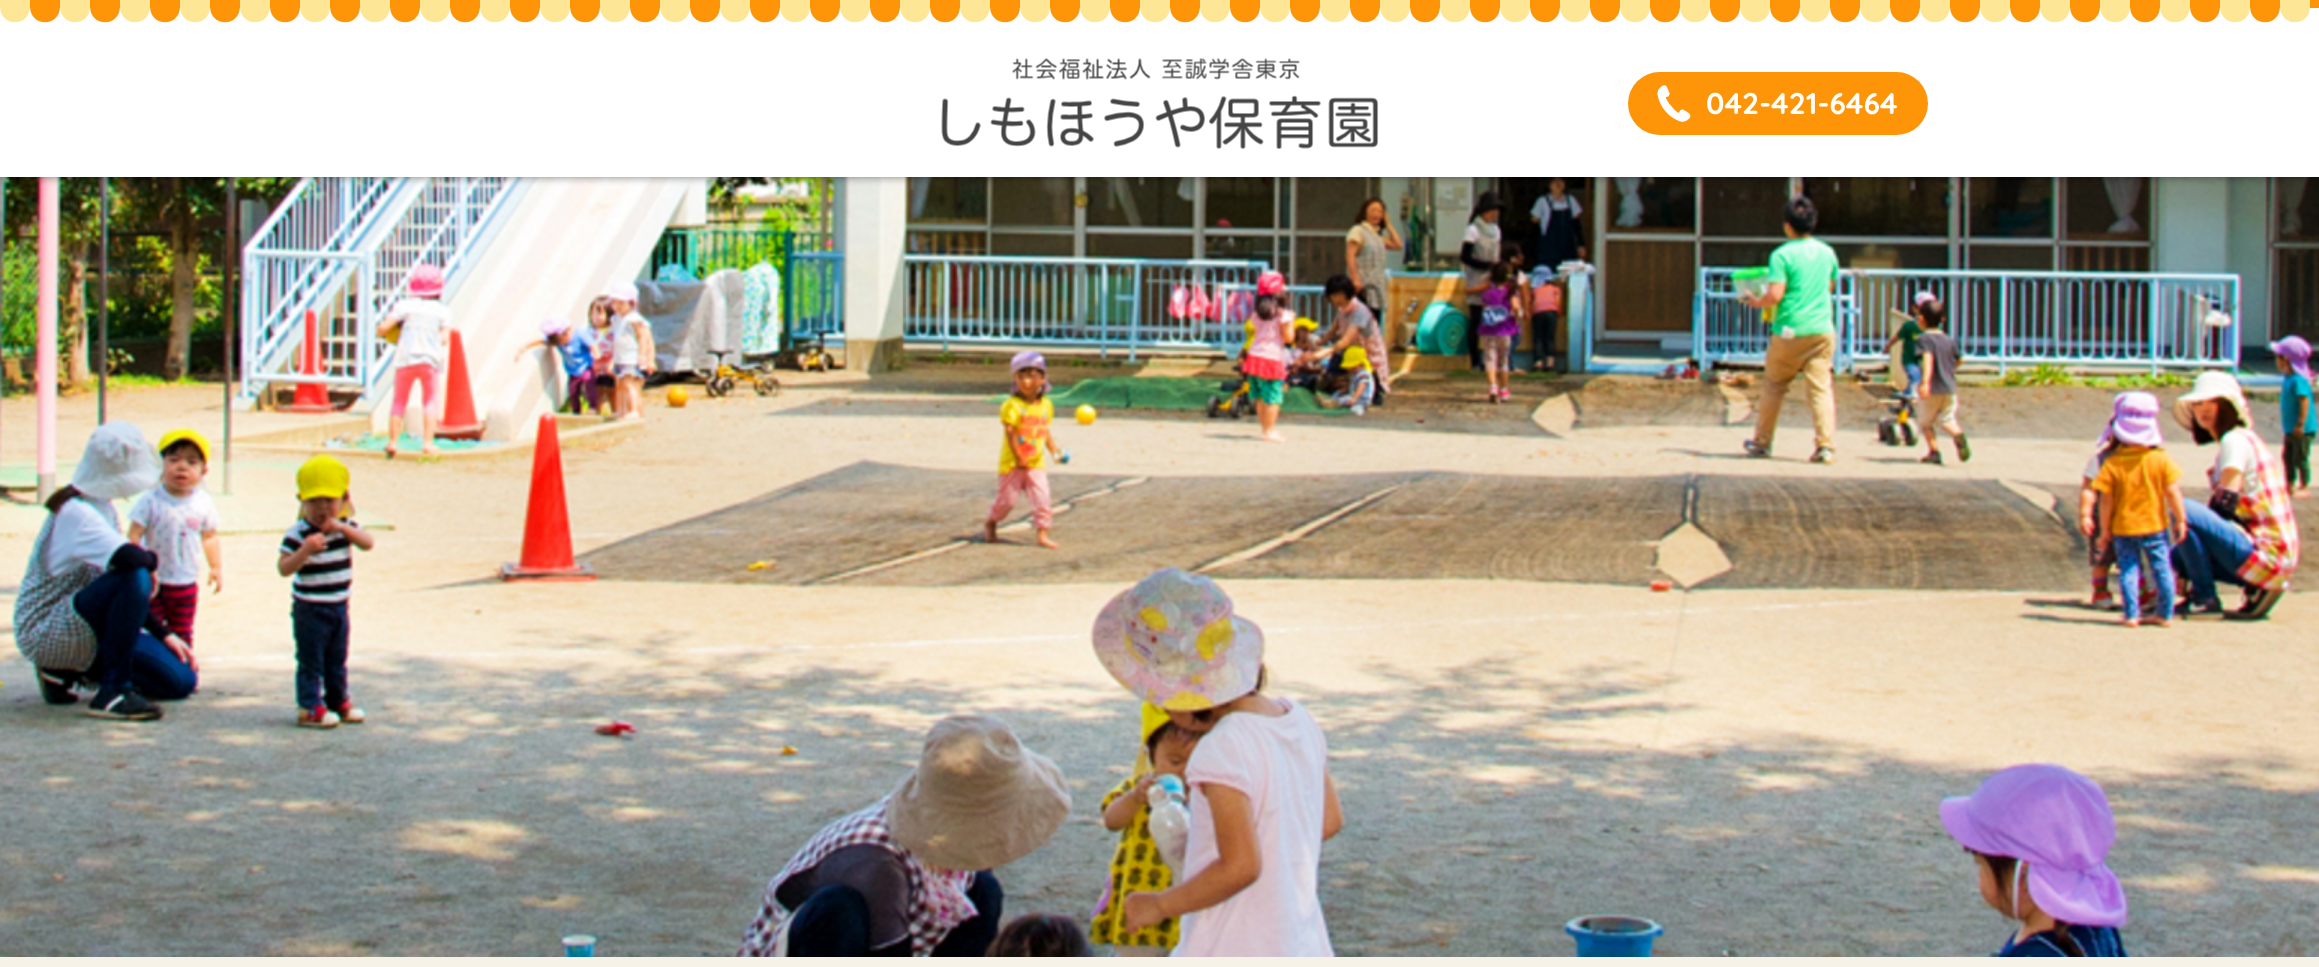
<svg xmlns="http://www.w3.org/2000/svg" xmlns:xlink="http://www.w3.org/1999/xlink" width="2319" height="967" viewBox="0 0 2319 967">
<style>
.cls-1{font:bold 30px Quicksand;fill:#ffffff}
</style>
<rect width="100%" height="100%" fill="#f6f2e7"/>
<image xlink:href="image3.png" x="0" y="177" width="2319" height="780"/>
<rect fill="#000000" fill-opacity="0.24" filter="blur(3px)" x="0" y="3" width="2319" height="177"/>
<rect fill="#000000" fill-opacity="0.12" filter="blur(1.5px)" x="0" y="0" width="2319" height="177"/>
<rect fill="#ffffff" x="0" y="8" width="2319" height="169"/>
<image xlink:href="image0.png" x="0" y="0" width="2319" height="8"/>
<path fill="none" stroke="#fe9508" stroke-width="29.7" stroke-linecap="round" stroke-dasharray="0 60" d="M45 7.5H2265.3"/>
<path fill="none" stroke="#fde696" stroke-width="29.7" stroke-linecap="round" stroke-dasharray="0 60" d="M15 7.5H2295.3"/>
<image xlink:href="image1.png" x="941" y="58" width="438" height="91"/>
<rect fill="#fe9508" x="1628" y="72" width="300" height="63" rx="31.5"/>
<image xlink:href="image2.png" x="1657" y="85" width="34" height="37"/>
<text class="cls-1" x="1706" y="114">042-421-6464</text>
</svg>
